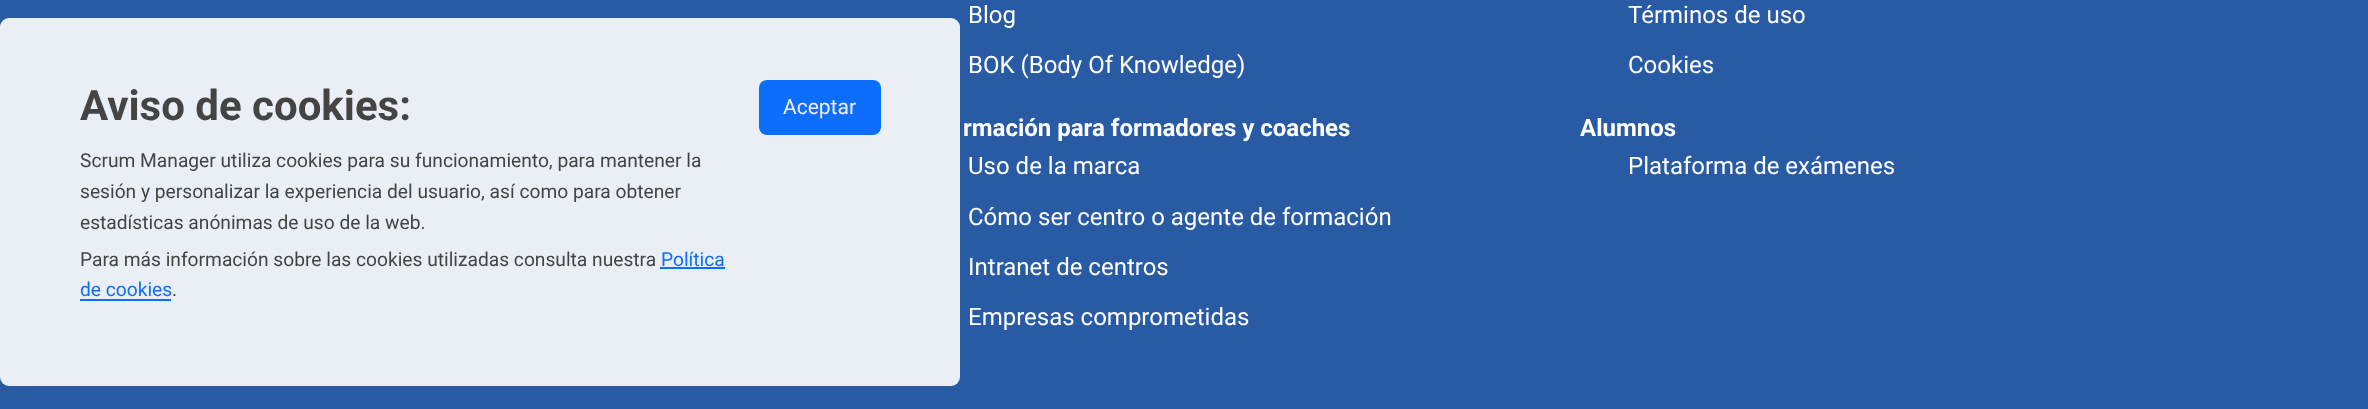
<svg xmlns="http://www.w3.org/2000/svg" xmlns:xlink="http://www.w3.org/1999/xlink" width="2368" height="409" viewBox="0 0 2368 409">
<style>
.cls-1{font:bold 42px Roboto;fill:#444444}
.cls-2{font:19.2px Roboto;fill:#444444}
.cls-3{font:19.2px Roboto;fill:#0d6efd}
.cls-4{font:21px Roboto;fill:#f1f0f0}
.cls-5{font:24px Roboto;fill:#ffffff}
.cls-6{font:bold 24px Roboto;fill:#ffffff}
</style>
<rect width="100%" height="100%" fill="#295ba4"/>
<rect fill="#ffffff" fill-opacity="0.9" x="0" y="18" width="960" height="368" rx="9"/>
<rect fill="#0d6efd" x="660" y="267" width="65" height="2"/>
<rect fill="#0d6efd" x="80" y="299" width="91" height="2"/>
<rect fill="#0d6efd" x="759" y="80" width="122" height="55" rx="8"/>
<text class="cls-1" x="80" y="120">Aviso de cookies:</text>
<text class="cls-2"><tspan x="80" y="167">Scrum Manager utiliza cookies para su funcionamiento, para mantener la</tspan><tspan x="80" y="198">sesión y personalizar la experiencia del usuario, así como para obtener</tspan><tspan x="80" y="229">estadísticas anónimas de uso de la web.</tspan><tspan x="80" y="266">Para más información sobre las cookies utilizadas consulta nuestra</tspan></text>
<text class="cls-3" x="661" y="266">Política</text>
<text class="cls-3" x="80" y="296">de cookies</text>
<text class="cls-2" x="172" y="296">.</text>
<text class="cls-4" x="783" y="114">Aceptar</text>
<text class="cls-5" x="968" y="23">Blog</text>
<text class="cls-5" x="968" y="73">BOK (Body Of Knowledge)</text>
<text class="cls-6" x="963" y="136">rmación para formadores y coaches</text>
<text class="cls-5" x="968" y="174">Uso de la marca</text>
<text class="cls-5" x="968" y="225">Cómo ser centro o agente de formación</text>
<text class="cls-5" x="968" y="275">Intranet de centros</text>
<text class="cls-5" x="968" y="325">Empresas comprometidas</text>
<text class="cls-5" x="1628" y="23">Términos de uso</text>
<text class="cls-5" x="1628" y="73">Cookies</text>
<text class="cls-6" x="1580" y="136">Alumnos</text>
<text class="cls-5" x="1628" y="174">Plataforma de exámenes</text>
</svg>
